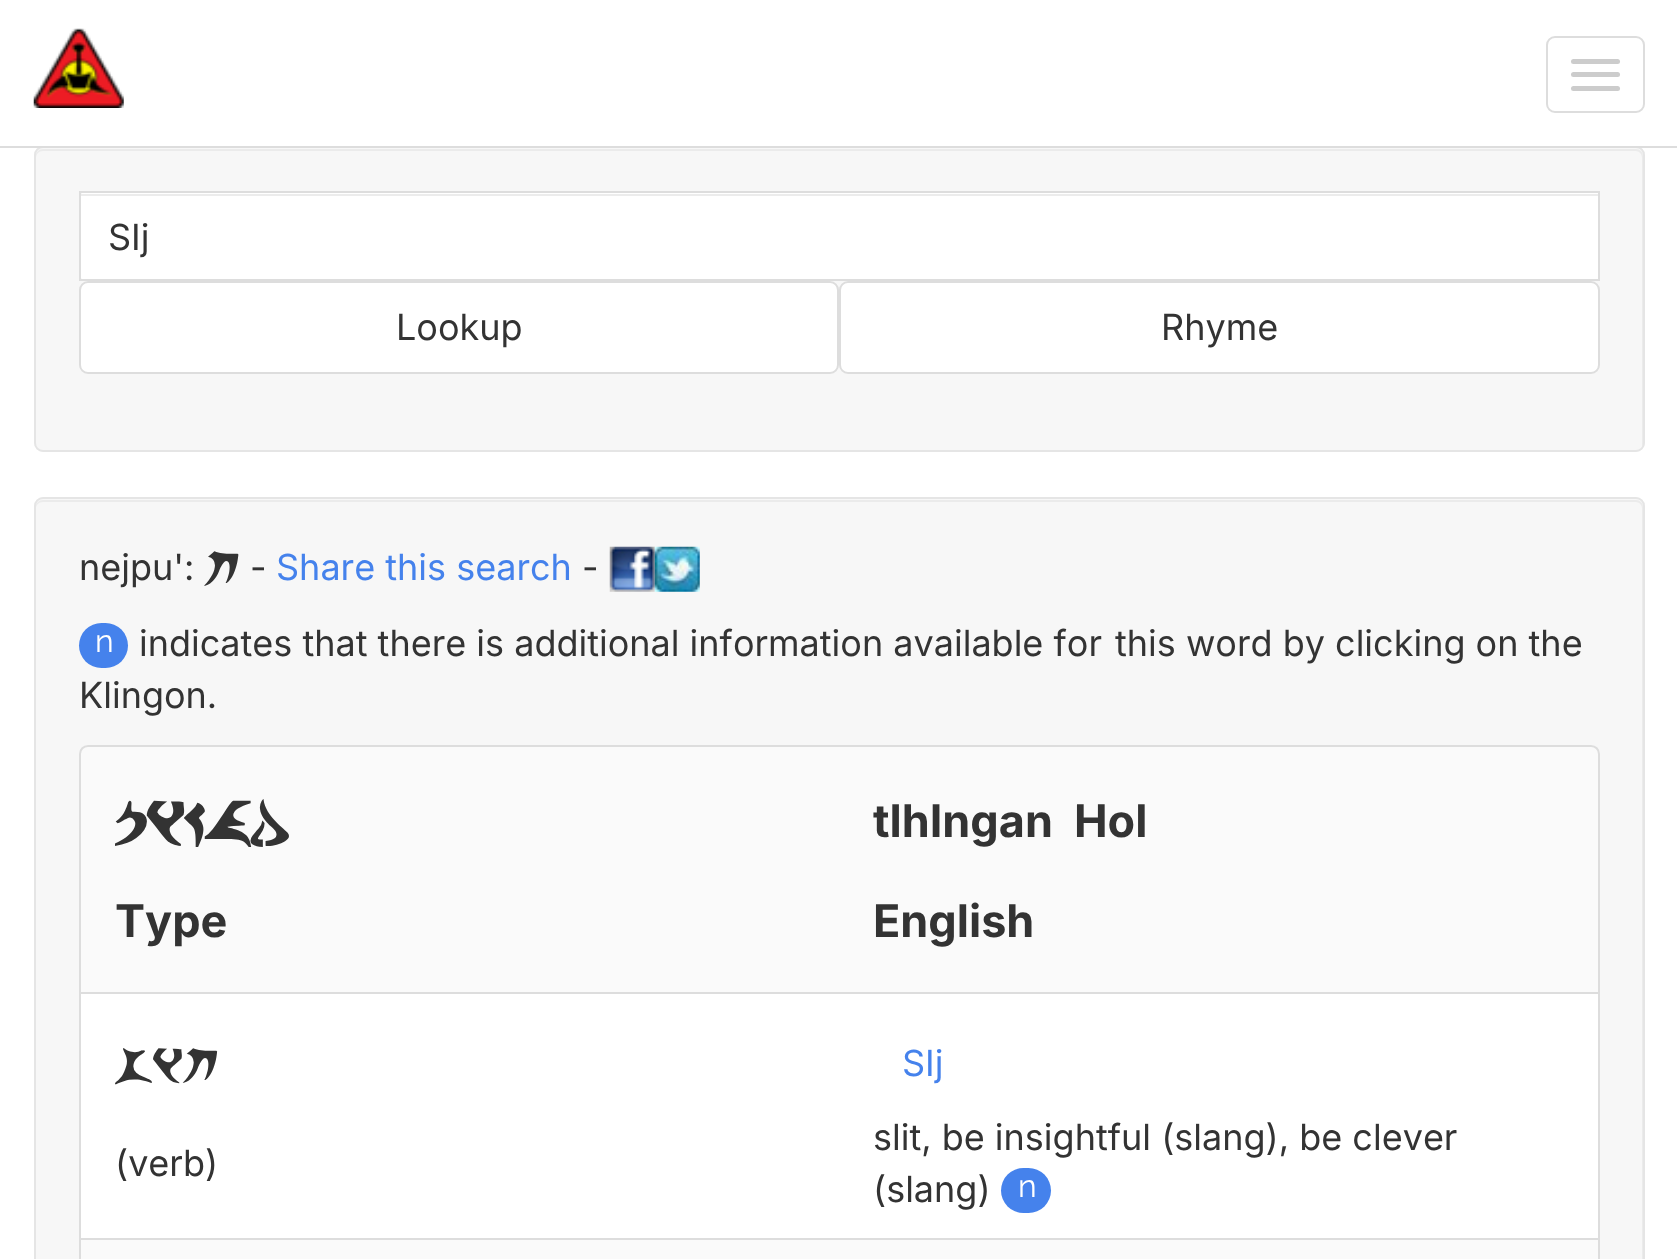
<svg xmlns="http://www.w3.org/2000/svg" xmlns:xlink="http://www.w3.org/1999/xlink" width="1677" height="1259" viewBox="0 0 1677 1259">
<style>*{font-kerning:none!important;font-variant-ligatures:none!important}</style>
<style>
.cls-1{font:36px Inter;fill:#333333}
.cls-2{font:500 36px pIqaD;fill:#333333}
.cls-3{font:36px Inter;fill:#4582ec}
.cls-4{font:32px Raleway;fill:#ffffff}
.cls-5{font:bold 45px pIqaD;fill:#333333}
.cls-6{font:bold 45px Inter;fill:#333333}
</style>
<rect width="100%" height="100%" fill="#ffffff"/>
<rect fill="#f7f7f7" x="34" y="146" width="1611" height="306" rx="9"/>
<path fill="#ebebeb" d="M43 151H1636C1639 151 1642 154 1642 158V447C1643 446 1643 444 1643 443V156C1643 152 1640 149 1636 149H43C39 149 36 152 36 156V158C36 154 39 151 43 151Z"/>
<rect fill="none" stroke="#e5e5e5" stroke-width="2" x="35" y="147" width="1609" height="304" rx="8"/>
<rect fill="#dddddd" x="0" y="146" width="1677" height="2"/>
<image xlink:href="image0.png" x="33" y="28" width="91" height="80"/>
<rect fill="none" stroke="#dddddd" stroke-width="2" x="1547" y="37" width="97" height="75" rx="8"/>
<rect fill="#cccccc" x="1571" y="59" width="49" height="5" rx="2.5"/>
<rect fill="#cccccc" x="1571" y="72" width="49" height="5" rx="2.5"/>
<rect fill="#cccccc" x="1571" y="86" width="49" height="5" rx="2.5"/>
<path fill="#ffffff" d="M88 191H1600V281H88C83 281 79 277 79 272V200C79 195 83 191 88 191Z"/>
<rect fill="#ececec" x="81" y="194" width="1517" height="2"/>
<rect fill="none" stroke="#dddddd" stroke-width="2" x="80" y="192" width="1519" height="88"/>
<rect fill="#ffffff" stroke="#dddddd" stroke-width="2" x="80" y="282" width="758" height="91" rx="8"/>
<rect fill="#ffffff" stroke="#dddddd" stroke-width="2" x="840" y="282" width="759" height="91" rx="8"/>
<rect fill="#f7f7f7" x="34" y="497" width="1611" height="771" rx="9"/>
<path fill="#ebebeb" d="M43 502H1636C1639 502 1642 505 1642 508V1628C1643 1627 1643 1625 1643 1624V507C1643 503 1640 500 1636 500H43C39 500 36 503 36 507V508C36 505 39 502 43 502Z"/>
<rect fill="none" stroke="#e5e5e5" stroke-width="2" x="35" y="498" width="1609" height="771" rx="8"/>
<image xlink:href="image1.png" x="609" y="546" width="46" height="46"/>
<image xlink:href="image2.png" x="654" y="546" width="46" height="46"/>
<rect fill="#4582ec" x="79" y="623" width="49" height="45" rx="22.5"/>
<path fill="#fafafa" stroke="#dddddd" stroke-width="2" d="M88 746H1591C1595.5 746 1599 749.5 1599 754V994H80V754C80 749.5 83.5 746 88 746Z"/>
<rect fill="#ffffff" stroke="#dddddd" stroke-width="2" x="80" y="993" width="1519" height="246"/>
<rect fill="#4582ec" x="1001" y="1168" width="50" height="45" rx="22.5"/>
<rect fill="#fafafa" stroke="#dddddd" stroke-width="2" x="80" y="1239" width="1519" height="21"/>
<text class="cls-1" x="108" y="250">SIj</text>
<text class="cls-1" x="396" y="340">Lookup</text>
<text class="cls-1" x="1161" y="340">Rhyme</text>
<text class="cls-1" x="79" y="580">nejpu':</text>
<text class="cls-2" x="204" y="580">SIj</text>
<text class="cls-1" x="250" y="580">-</text>
<text class="cls-3" x="276" y="580">Share this search</text>
<text class="cls-1" x="582" y="580">-</text>
<text class="cls-4" x="95" y="652">n</text>
<text class="cls-1" x="139" y="656">indicates that there is additional information available for</text>
<text class="cls-1" x="1115" y="656">this word by clicking on the</text>
<text class="cls-1" x="79" y="708">Klingon.</text>
<text class="cls-5" x="115" y="838">pikad</text>
<text class="cls-6" x="873" y="837">tlhIngan</text>
<text class="cls-6" x="1074" y="837">Hol</text>
<text class="cls-6" x="115" y="937">Type</text>
<text class="cls-6" x="873" y="937">English</text>
<text class="cls-2" x="115" y="1077">sij</text>
<text class="cls-3" x="902" y="1076">SIj</text>
<text class="cls-1" x="115" y="1176">(verb)</text>
<text class="cls-1"><tspan x="873" y="1150">slit, be insightful (slang), be clever</tspan><tspan x="873" y="1202">(slang)</tspan></text>
<text class="cls-4" x="1018" y="1197">n</text>
</svg>
